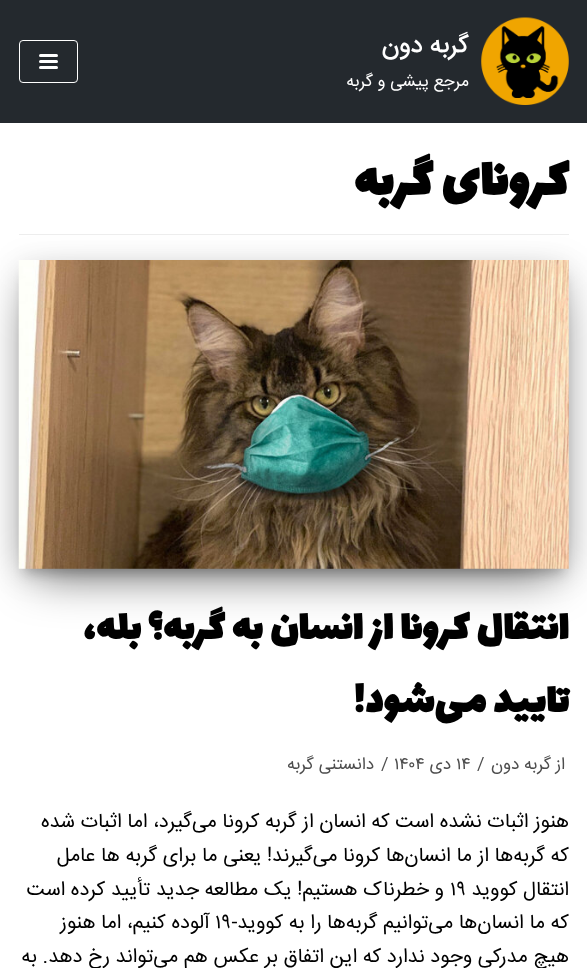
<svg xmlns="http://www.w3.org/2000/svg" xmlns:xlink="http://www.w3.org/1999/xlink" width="587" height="968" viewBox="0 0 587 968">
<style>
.cls-1{font:500 25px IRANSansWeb;direction:rtl;fill:#ffffff}
.cls-2{font:16.75px IRANSansWeb;direction:rtl;fill:#ffffff}
.cls-3{font:bold 56px Lalezar;direction:rtl;fill:#000000}
.cls-4{font:bold 43.75px Lalezar;direction:rtl;fill:#000000}
.cls-5{font:17px IRANSansWeb;direction:rtl;fill:#4d4d4d}
.cls-6{font:17px IRANSansWeb;fill:#4d4d4d}
.cls-7{font:20px IRANSansWeb;direction:rtl;fill:#000000}
.cls-8{font:20px IRANSansWeb;fill:#000000}
</style>
<rect width="100%" height="100%" fill="#ffffff"/>
<rect fill="#24292e" x="0" y="0" width="587" height="123"/>
<image xlink:href="image0.png" x="481" y="17" width="88" height="88"/>
<rect fill="none" stroke="#ffffff" x="19.5" y="40.5" width="58" height="42" rx="3.5"/>
<rect fill="#ffffff" x="39" y="54" width="19" height="3" rx="1.5"/>
<rect fill="#ffffff" x="39" y="60" width="19" height="3" rx="1.5"/>
<rect fill="#ffffff" x="39" y="66" width="19" height="3" rx="1.5"/>
<rect fill="#ededed" x="19" y="234" width="550" height="1"/>
<rect fill="#000000" fill-opacity="0.12" filter="blur(15.5px)" x="19" y="265" width="550" height="309"/>
<rect fill="#000000" fill-opacity="0.56" filter="blur(24px)" x="34" y="295" width="520" height="279"/>
<rect fill="#000000" fill-opacity="0.2" filter="blur(6px)" x="25" y="276" width="538" height="297"/>
<image xlink:href="image1.png" x="18" y="260" width="551" height="309"/>
<text class="cls-1" x="469" y="52">گربه دون</text>
<text class="cls-2" x="469" y="86">مرجع پیشی و گربه</text>
<text class="cls-3" x="569" y="195">کرونای گربه</text>
<text class="cls-4"><tspan x="569" y="639">انتقال کرونا از انسان به گربه؟ بله،</tspan><tspan x="569" y="712">تایید می‌شود!</tspan></text>
<text class="cls-5" x="565" y="769">از</text>
<text class="cls-5" x="551" y="769">گربه دون</text>
<text class="cls-6" x="477" y="769">/</text>
<text class="cls-6" x="456" y="769">۱۴</text>
<text class="cls-5" x="451" y="769">دی</text>
<text class="cls-6" x="394" y="769">۱۴۰۴</text>
<text class="cls-6" x="381" y="769">/</text>
<text class="cls-5" x="374" y="769">دانستنی گربه</text>
<text class="cls-7"><tspan x="569" y="827">هنوز اثبات نشده است که انسان از گربه کرونا می‌گیرد، اما اثبات شده</tspan><tspan x="569" y="861">که گربه‌ها از ما انسان‌ها کرونا می‌گیرند! یعنی ما برای گربه ها عامل</tspan><tspan x="569" y="895">انتقال کووید</tspan></text>
<text class="cls-8" x="450" y="895">۱۹</text>
<text class="cls-7" x="444" y="895">و خطرناک هستیم! یک مطالعه جدید تأیید کرده است</text>
<text class="cls-7" x="569" y="928">که ما انسان‌ها می‌توانیم گربه‌ها را به کووید-</text>
<text class="cls-8" x="215" y="928">۱۹</text>
<text class="cls-7" x="210" y="928">آلوده کنیم، اما هنوز</text>
<text class="cls-7" x="569" y="962">هیچ مدرکی وجود ندارد که این اتفاق بر عکس هم می‌تواند رخ دهد. به</text>
</svg>
